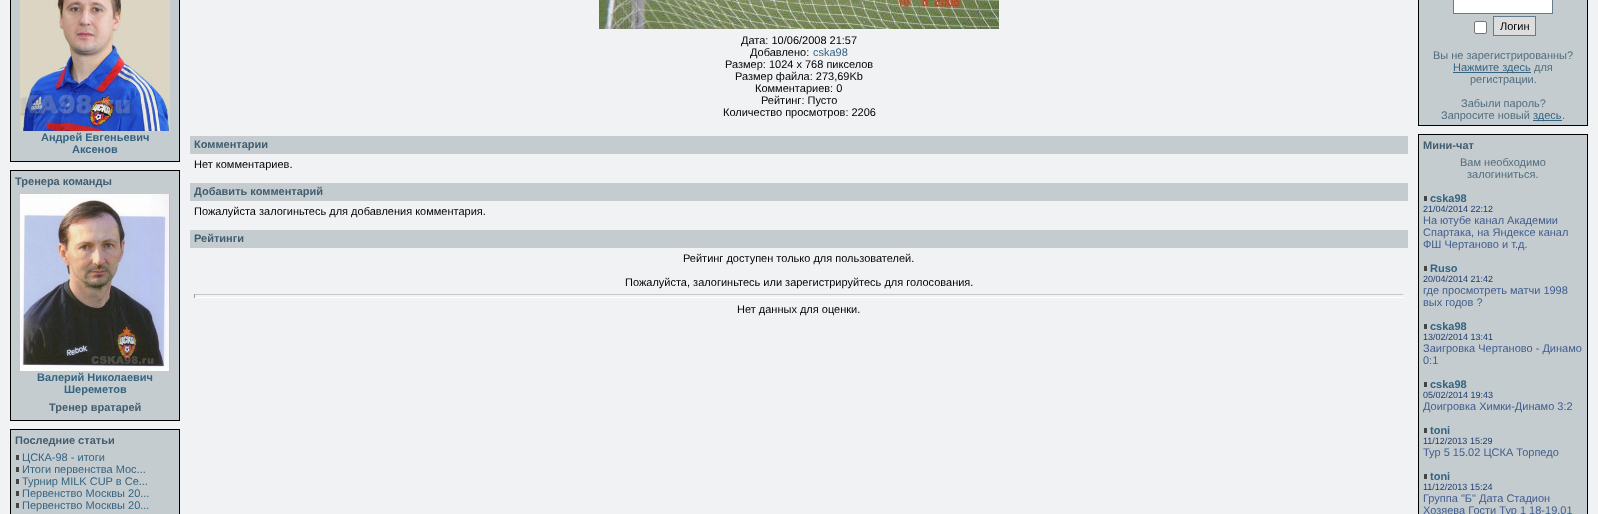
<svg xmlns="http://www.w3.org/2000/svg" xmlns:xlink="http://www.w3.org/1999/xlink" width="1598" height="514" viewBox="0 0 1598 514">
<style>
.cls-1{font:bold 11px Liberation Sans;fill:#356481}
.cls-2{font:bold 11px Liberation Sans;fill:#415d6f}
.cls-3{font:11px Liberation Sans;fill:#356481}
.cls-4{font:11px Liberation Sans;fill:#000000}
.cls-5{font:11px Liberation Sans;fill:#516d7f}
.cls-6{font:9px Liberation Sans;fill:#213d6f}
.cls-7{font:11px Liberation Sans;fill:#415d8f}
</style>
<rect width="100%" height="100%" fill="#f1f2f4"/>
<rect fill="none" stroke="#000000" x="10.5" y="-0.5" width="169" height="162"/>
<rect fill="#c4cccf" x="11" y="0" width="168" height="161"/>
<image xlink:href="image0.png" x="20" y="0" width="150" height="131"/>
<rect fill="none" stroke="#000000" x="10.5" y="170.5" width="169" height="250"/>
<rect fill="#c4cccf" x="11" y="171" width="168" height="249"/>
<image xlink:href="image1.png" x="20" y="194" width="150" height="177"/>
<rect fill="none" stroke="#000000" x="10.5" y="429.5" width="169" height="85"/>
<rect fill="#c4cccf" x="11" y="430" width="168" height="84"/>
<rect fill="#444444" x="16" y="455" width="3" height="5"/>
<rect fill="#444444" x="16" y="467" width="3" height="5"/>
<rect fill="#444444" x="16" y="479" width="3" height="5"/>
<rect fill="#444444" x="16" y="491" width="3" height="5"/>
<rect fill="#444444" x="16" y="503" width="3" height="5"/>
<image xlink:href="image2.png" x="599" y="0" width="400" height="29"/>
<rect fill="#c4cccf" x="190" y="136" width="1218" height="18"/>
<rect fill="#c4cccf" x="190" y="183" width="1218" height="18"/>
<rect fill="#c4cccf" x="190" y="230" width="1218" height="18"/>
<rect fill="#c6c7c9" x="194" y="294" width="1210" height="1"/>
<rect fill="#eeeeee" x="1403" y="294" width="1" height="4"/>
<rect fill="#ffffff" x="194" y="297" width="1210" height="1"/>
<rect fill="#9f9f9f" x="194" y="294" width="1" height="4"/>
<rect fill="none" stroke="#000000" x="1418.5" y="-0.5" width="169" height="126"/>
<rect fill="#c4cccf" x="1419" y="0" width="168" height="125"/>
<rect fill="#ffffff" stroke="#617d8f" x="1453.5" y="-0.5" width="99" height="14"/>
<rect fill="#ffffff" stroke="#767676" x="1474.5" y="21.5" width="12" height="12" rx="1.5"/>
<rect fill="#dddddd" stroke="#617d8f" x="1493.5" y="16.5" width="42" height="19"/>
<rect fill="#356481" x="1453" y="72" width="78" height="1"/>
<rect fill="#356481" x="1533" y="120" width="29" height="1"/>
<rect fill="none" stroke="#000000" x="1418.5" y="134.5" width="169" height="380"/>
<rect fill="#c4cccf" x="1419" y="135" width="168" height="379"/>
<rect fill="#444444" x="1424" y="196" width="3" height="5"/>
<rect fill="#444444" x="1424" y="266" width="3" height="5"/>
<rect fill="#444444" x="1424" y="324" width="3" height="5"/>
<rect fill="#444444" x="1424" y="382" width="3" height="5"/>
<rect fill="#444444" x="1424" y="428" width="3" height="5"/>
<rect fill="#444444" x="1424" y="474" width="3" height="5"/>
<text class="cls-1" x="41" y="141">Андрей Евгеньевич</text>
<text class="cls-1" x="72" y="153">Аксенов</text>
<text class="cls-2" x="15" y="185">Тренера команды</text>
<text class="cls-1" x="37" y="381">Валерий Николаевич</text>
<text class="cls-1" x="64" y="393">Шереметов</text>
<text class="cls-2" x="49" y="411">Тренер вратарей</text>
<text class="cls-2" x="15" y="444">Последние статьи</text>
<text class="cls-3"><tspan x="22" y="461">ЦСКА-98 - итоги</tspan><tspan x="22" y="473">Итоги первенства Мос...</tspan><tspan x="22" y="485">Турнир MILK CUP в Се...</tspan><tspan x="22" y="497">Первенство Москвы 20...</tspan><tspan x="22" y="509">Первенство Москвы 20...</tspan></text>
<text class="cls-4" x="741" y="44">Дата: 10/06/2008 21:57</text>
<text class="cls-4" x="750" y="56">Добавлено:</text>
<text class="cls-3" x="813" y="56">cska98</text>
<text class="cls-4" x="725" y="68">Размер: 1024 x 768 пикселов</text>
<text class="cls-4" x="735" y="80">Размер файла: 273,69Kb</text>
<text class="cls-4" x="755" y="92">Комментариев: 0</text>
<text class="cls-4" x="761" y="104">Рейтинг: Пусто</text>
<text class="cls-4" x="723" y="116">Количество просмотров: 2206</text>
<text class="cls-2" x="194" y="148">Комментарии</text>
<text class="cls-4" x="194" y="168">Нет комментариев.</text>
<text class="cls-2" x="194" y="195">Добавить комментарий</text>
<text class="cls-4" x="194" y="215">Пожалуйста залогиньтесь для добавления комментария.</text>
<text class="cls-2" x="194" y="242">Рейтинги</text>
<text class="cls-4" x="683" y="262">Рейтинг доступен только для пользователей.</text>
<text class="cls-4" x="625" y="286">Пожалуйста, залогиньтесь или зарегистрируйтесь для голосования.</text>
<text class="cls-4" x="737" y="313">Нет данных для оценки.</text>
<text class="cls-4" x="1500" y="30">Логин</text>
<text class="cls-5" x="1433" y="59">Вы не зарегистрированны?</text>
<text class="cls-3" x="1453" y="71">Нажмите здесь</text>
<text class="cls-5" x="1534" y="71">для</text>
<text class="cls-5" x="1470" y="83">регистрации.</text>
<text class="cls-5" x="1461" y="107">Забыли пароль?</text>
<text class="cls-5" x="1441" y="119">Запросите новый</text>
<text class="cls-3" x="1533" y="119">здесь</text>
<text class="cls-5" x="1562" y="119">.</text>
<text class="cls-2" x="1423" y="149">Мини-чат</text>
<text class="cls-5" x="1460" y="166">Вам необходимо</text>
<text class="cls-5" x="1467" y="178">залогиниться.</text>
<text class="cls-1" x="1430" y="202">cska98</text>
<text class="cls-6" x="1423" y="212">21/04/2014 22:12</text>
<text class="cls-7"><tspan x="1423" y="224">На ютубе канал Академии</tspan><tspan x="1423" y="236">Спартака, на Яндексе канал</tspan><tspan x="1423" y="248">ФШ Чертаново и т.д.</tspan></text>
<text class="cls-1" x="1430" y="272">Ruso</text>
<text class="cls-6" x="1423" y="282">20/04/2014 21:42</text>
<text class="cls-7"><tspan x="1423" y="294">где просмотреть матчи 1998</tspan><tspan x="1423" y="306">вых годов ?</tspan></text>
<text class="cls-1" x="1430" y="330">cska98</text>
<text class="cls-6" x="1423" y="340">13/02/2014 13:41</text>
<text class="cls-7"><tspan x="1423" y="352">Заигровка Чертаново - Динамо</tspan><tspan x="1423" y="364">0:1</tspan></text>
<text class="cls-1" x="1430" y="388">cska98</text>
<text class="cls-6" x="1423" y="398">05/02/2014 19:43</text>
<text class="cls-7" x="1423" y="410">Доигровка Химки-Динамо 3:2</text>
<text class="cls-1" x="1430" y="434">toni</text>
<text class="cls-6" x="1423" y="444">11/12/2013 15:29</text>
<text class="cls-7" x="1423" y="456">Тур 5 15.02 ЦСКА Торпедо</text>
<text class="cls-1" x="1430" y="480">toni</text>
<text class="cls-6" x="1423" y="490">11/12/2013 15:24</text>
<text class="cls-7"><tspan x="1423" y="502">Группа "Б" Дата Стадион</tspan><tspan x="1423" y="514">Хозяева Гости Тур 1 18-19.01</tspan></text>
</svg>
